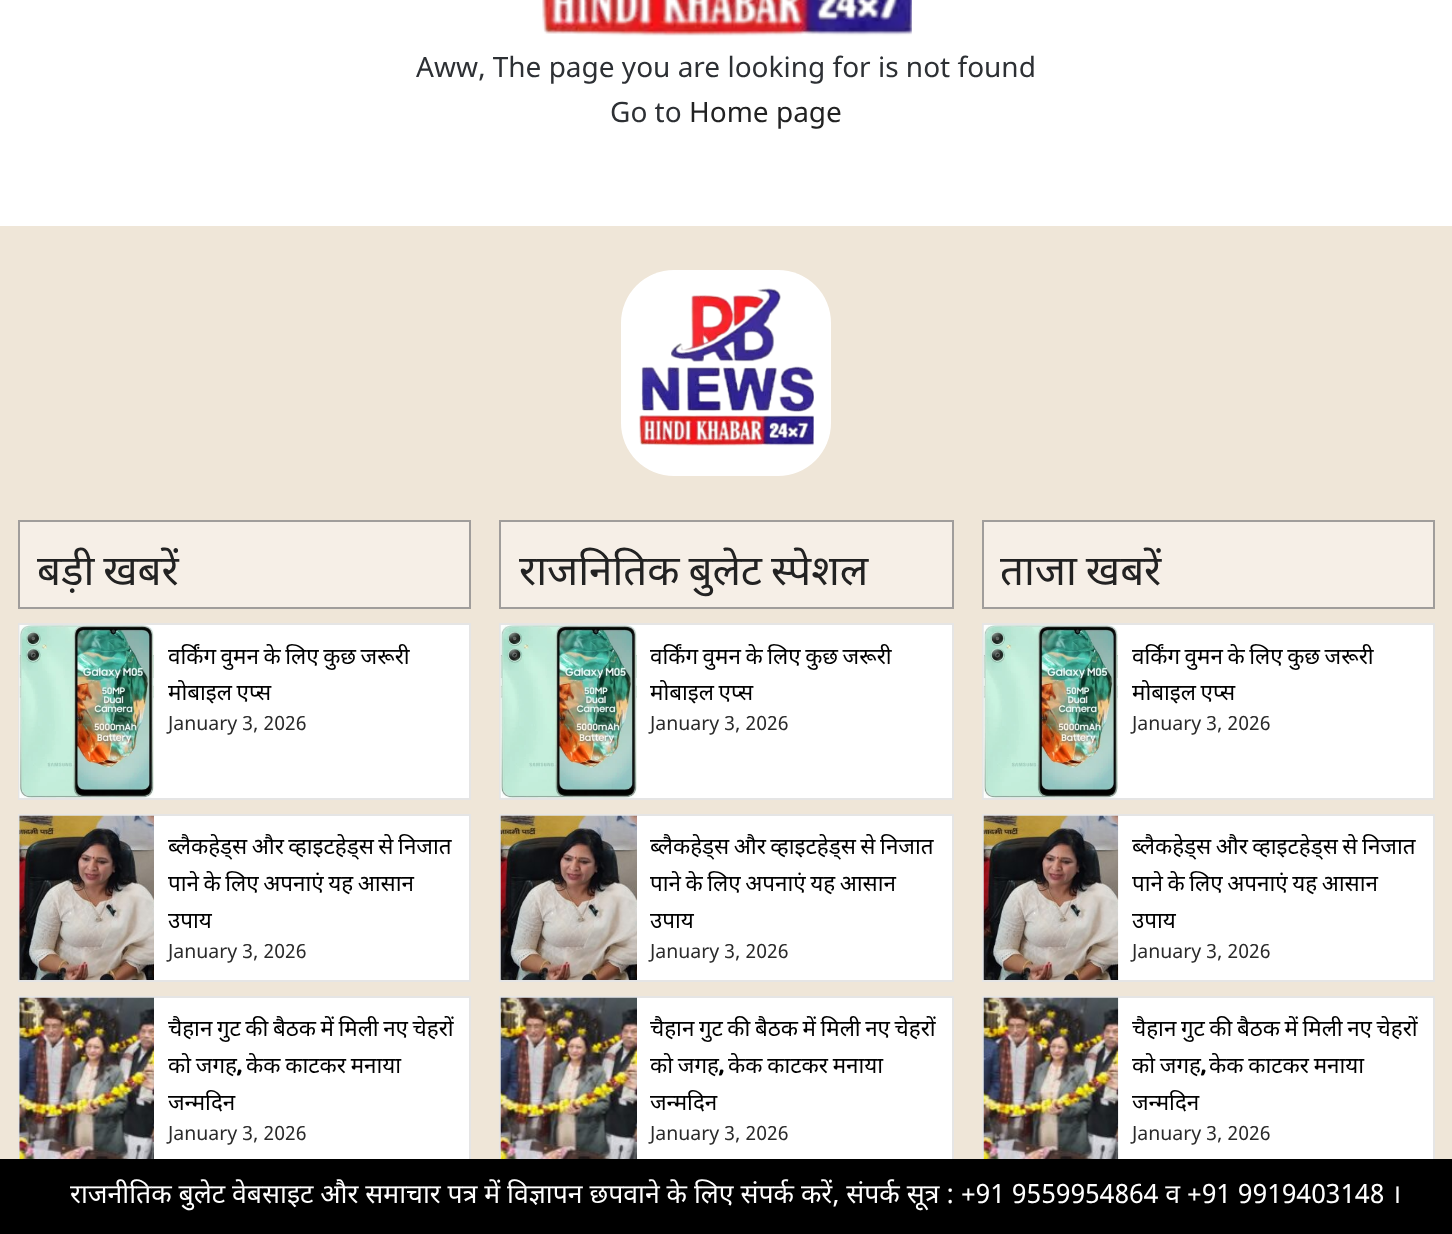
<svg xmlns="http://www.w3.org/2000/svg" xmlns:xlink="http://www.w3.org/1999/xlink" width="1452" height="1234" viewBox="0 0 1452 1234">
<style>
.cls-1{font:28px Noto Sans Devanagari;fill:#2d3034}
.cls-2{font:28px Noto Sans Devanagari;fill:#222222}
.cls-3{font:42px Noto Sans;fill:#222222}
.cls-4{font:22.4px Noto Sans;fill:#000000}
.cls-5{font:19.5px Noto Sans Devanagari;fill:#2a2a2a}
.cls-6{font:bold 22.4px 'Baloo Bhai 2';fill:#000000}
.cls-7{font:26.6px Noto Sans Devanagari;fill:#ffffff}
</style>
<rect width="100%" height="100%" fill="#ffffff"/>
<image xlink:href="image0.png" x="542" y="0" width="370" height="36"/>
<rect fill="#efe6d8" x="0" y="226" width="1452" height="933"/>
<rect fill="#ffffff" x="621" y="270" width="210" height="206" rx="53"/>
<image xlink:href="image1.png" x="639" y="288" width="175" height="158"/>
<rect fill="#f6efe7" stroke="#a09d9b" stroke-width="2" x="19" y="521" width="451" height="87"/>
<rect fill="#ffffff" x="154" y="625" width="315" height="173"/>
<rect fill="none" stroke="#e5e5e5" stroke-width="2" x="19" y="624" width="451" height="175"/>
<image xlink:href="image2.png" x="19" y="625" width="135" height="173"/>
<rect fill="#ffffff" x="154" y="816" width="315" height="164"/>
<rect fill="none" stroke="#e5e5e5" stroke-width="2" x="19" y="815" width="451" height="166"/>
<image xlink:href="image3.png" x="19" y="815" width="135" height="165"/>
<rect fill="#ffffff" x="154" y="998" width="315" height="161"/>
<rect fill="none" stroke="#e5e5e5" stroke-width="2" x="19" y="997" width="451" height="166"/>
<image xlink:href="image4.png" x="19" y="997" width="135" height="162"/>
<rect fill="#f6efe7" stroke="#a09d9b" stroke-width="2" x="500" y="521" width="453" height="87"/>
<rect fill="#ffffff" x="637" y="625" width="315" height="173"/>
<rect fill="none" stroke="#e5e5e5" stroke-width="2" x="500" y="624" width="453" height="175"/>
<image xlink:href="image5.png" x="500" y="625" width="137" height="173"/>
<rect fill="#ffffff" x="637" y="816" width="315" height="164"/>
<rect fill="none" stroke="#e5e5e5" stroke-width="2" x="500" y="815" width="453" height="166"/>
<image xlink:href="image6.png" x="500" y="815" width="137" height="165"/>
<rect fill="#ffffff" x="637" y="998" width="315" height="161"/>
<rect fill="none" stroke="#e5e5e5" stroke-width="2" x="500" y="997" width="453" height="166"/>
<image xlink:href="image7.png" x="500" y="997" width="137" height="162"/>
<rect fill="#f6efe7" stroke="#a09d9b" stroke-width="2" x="983" y="521" width="451" height="87"/>
<rect fill="#ffffff" x="1118" y="625" width="315" height="173"/>
<rect fill="none" stroke="#e5e5e5" stroke-width="2" x="983" y="624" width="451" height="175"/>
<image xlink:href="image8.png" x="983" y="625" width="135" height="173"/>
<rect fill="#ffffff" x="1118" y="816" width="315" height="164"/>
<rect fill="none" stroke="#e5e5e5" stroke-width="2" x="983" y="815" width="451" height="166"/>
<image xlink:href="image9.png" x="983" y="815" width="136" height="165"/>
<rect fill="#ffffff" x="1118" y="998" width="315" height="161"/>
<rect fill="none" stroke="#e5e5e5" stroke-width="2" x="983" y="997" width="451" height="166"/>
<image xlink:href="image10.png" x="983" y="997" width="136" height="162"/>
<rect fill="#000000" x="0" y="1159" width="1452" height="75"/>
<text class="cls-1" x="416" y="77">Aww, The page you are looking for is not found</text>
<text class="cls-1" x="610" y="122">Go to</text>
<text class="cls-2" x="689" y="122">Home page</text>
<text class="cls-3" x="37" y="585" word-spacing="-2">बड़ी खबरें</text>
<text class="cls-4"><tspan x="168" y="664" word-spacing="-1.25">वर्किंग वुमन के लिए कुछ जरूरी</tspan><tspan x="168" y="700" word-spacing="-1.25">मोबाइल एप्स</tspan></text>
<text class="cls-5" x="168" y="730">January 3, 2026</text>
<text class="cls-4"><tspan x="168" y="854" word-spacing="-1.25">ब्लैकहेड्स और व्हाइटहेड्स से निजात</tspan><tspan x="168" y="891" word-spacing="-1.25">पाने के लिए अपनाएं यह आसान</tspan><tspan x="168" y="928">उपाय</tspan></text>
<text class="cls-5" x="168" y="958">January 3, 2026</text>
<text class="cls-4"><tspan x="168" y="1036" word-spacing="-1.25">चैहान गुट की बैठक में मिली नए चेहरों</tspan><tspan x="168" y="1073" word-spacing="-1">को जगह</tspan></text>
<text class="cls-6" x="237" y="1073">,</text>
<text class="cls-4" x="246" y="1073" word-spacing="-1">केक काटकर मनाया</text>
<text class="cls-4" x="168" y="1110">जन्मदिन</text>
<text class="cls-5" x="168" y="1140">January 3, 2026</text>
<text class="cls-3" x="519" y="585" word-spacing="-2">राजनितिक बुलेट स्पेशल</text>
<text class="cls-4"><tspan x="650" y="664" word-spacing="-1.25">वर्किंग वुमन के लिए कुछ जरूरी</tspan><tspan x="650" y="700" word-spacing="-1.25">मोबाइल एप्स</tspan></text>
<text class="cls-5" x="650" y="730">January 3, 2026</text>
<text class="cls-4"><tspan x="650" y="854" word-spacing="-1.25">ब्लैकहेड्स और व्हाइटहेड्स से निजात</tspan><tspan x="650" y="891" word-spacing="-1.25">पाने के लिए अपनाएं यह आसान</tspan><tspan x="650" y="928">उपाय</tspan></text>
<text class="cls-5" x="650" y="958">January 3, 2026</text>
<text class="cls-4"><tspan x="650" y="1036" word-spacing="-1.25">चैहान गुट की बैठक में मिली नए चेहरों</tspan><tspan x="650" y="1073" word-spacing="-1">को जगह</tspan></text>
<text class="cls-6" x="719" y="1073">,</text>
<text class="cls-4" x="728" y="1073" word-spacing="-1">केक काटकर मनाया</text>
<text class="cls-4" x="650" y="1110">जन्मदिन</text>
<text class="cls-5" x="650" y="1140">January 3, 2026</text>
<text class="cls-3" x="1000" y="585" word-spacing="-2">ताजा खबरें</text>
<text class="cls-4"><tspan x="1132" y="664" word-spacing="-1.25">वर्किंग वुमन के लिए कुछ जरूरी</tspan><tspan x="1132" y="700" word-spacing="-1.25">मोबाइल एप्स</tspan></text>
<text class="cls-5" x="1132" y="730">January 3, 2026</text>
<text class="cls-4"><tspan x="1132" y="854" word-spacing="-1.25">ब्लैकहेड्स और व्हाइटहेड्स से निजात</tspan><tspan x="1132" y="891" word-spacing="-1.25">पाने के लिए अपनाएं यह आसान</tspan><tspan x="1132" y="928">उपाय</tspan></text>
<text class="cls-5" x="1132" y="958">January 3, 2026</text>
<text class="cls-4"><tspan x="1132" y="1036" word-spacing="-1.25">चैहान गुट की बैठक में मिली नए चेहरों</tspan><tspan x="1132" y="1073" word-spacing="-1">को जगह</tspan></text>
<text class="cls-6" x="1201" y="1073">,</text>
<text class="cls-4" x="1209" y="1073" word-spacing="-1">केक काटकर मनाया</text>
<text class="cls-4" x="1132" y="1110">जन्मदिन</text>
<text class="cls-5" x="1132" y="1140">January 3, 2026</text>
<text class="cls-7" x="70" y="1203">राजनीतिक बुलेट वेबसाइट और समाचार पत्र में विज्ञापन छपवाने के लिए संपर्क करें, संपर्क सूत्र : +91 9559954864 व +91 9919403148 ।</text>
</svg>
